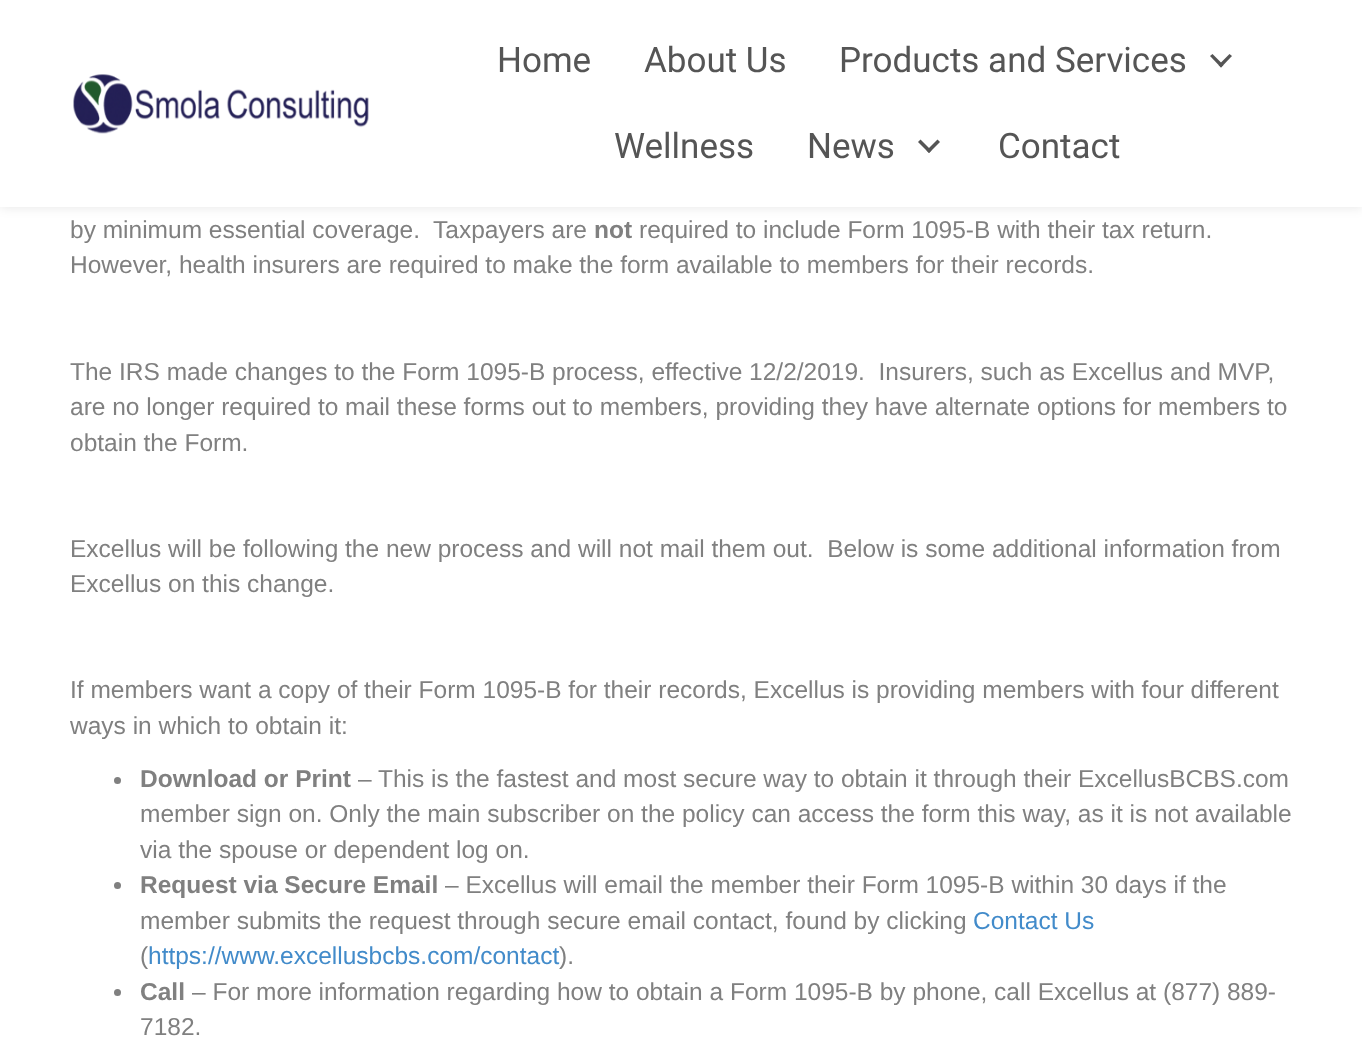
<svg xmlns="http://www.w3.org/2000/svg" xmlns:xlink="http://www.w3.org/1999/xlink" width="1362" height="1051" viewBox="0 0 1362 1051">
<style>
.cls-1{font:35px Roboto;fill:#555555}
.cls-2{font:24.5px Liberation Sans;fill:#808080}
.cls-3{font:bold 24.5px Liberation Sans;fill:#808080}
.cls-4{font:24.5px Liberation Sans;fill:#428bca}
</style>
<rect width="100%" height="100%" fill="#ffffff"/>
<rect fill="#000000" fill-opacity="0.1" filter="blur(6px)" x="0" y="0" width="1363" height="207"/>
<rect fill="#ffffff" x="0" y="0" width="1362" height="207"/>
<image xlink:href="image0.png" x="73" y="74" width="296" height="60"/>
<path fill="#555555" d="M1229.5 54L1232 56L1221 67.5L1218.5 65Z"/>
<path fill="#555555" d="M1212.5 54L1223.5 65L1221 67.5L1210 56Z"/>
<path fill="#555555" d="M937.5 139.5L940 142L929 153L926.5 150.5Z"/>
<path fill="#555555" d="M920.5 139.5L931.5 150.5L929 153L918 142Z"/>
<circle fill="#808080" cx="117.5" cy="780.5" r="3.5"/>
<circle fill="#808080" cx="117.5" cy="885.5" r="3.5"/>
<circle fill="#808080" cx="117.5" cy="992.5" r="3.5"/>
<text class="cls-1" x="497" y="72">Home</text>
<text class="cls-1" x="644" y="72">About Us</text>
<text class="cls-1" x="839" y="72">Products and Services</text>
<text class="cls-1" x="614" y="158">Wellness</text>
<text class="cls-1" x="807" y="158">News</text>
<text class="cls-1" x="998" y="158">Contact</text>
<text class="cls-2" xml:space="preserve" x="70" y="238">by minimum essential coverage.  Taxpayers are</text>
<text class="cls-3" x="594" y="238">not</text>
<text class="cls-2" x="639" y="238">required to include Form 1095-B with their tax return.</text>
<text class="cls-2" x="70" y="273">However, health insurers are required to make the form available to members for their records.</text>
<text class="cls-2" xml:space="preserve"><tspan x="70" y="380">The IRS made changes to the Form 1095-B process, effective 12/2/2019.  Insurers, such as Excellus and MVP,</tspan><tspan x="70" y="415">are no longer required to mail these forms out to members, providing they have alternate options for members to</tspan><tspan x="70" y="451">obtain the Form.</tspan></text>
<text class="cls-2" xml:space="preserve"><tspan x="70" y="557">Excellus will be following the new process and will not mail them out.  Below is some additional information from</tspan><tspan x="70" y="592">Excellus on this change.</tspan></text>
<text class="cls-2"><tspan x="70" y="698">If members want a copy of their Form 1095-B for their records, Excellus is providing members with four different</tspan><tspan x="70" y="734">ways in which to obtain it:</tspan></text>
<text class="cls-3" x="140" y="787">Download or Print</text>
<text class="cls-2" x="358" y="787">– This is the fastest and most secure way to obtain it through their ExcellusBCBS.com</text>
<text class="cls-2"><tspan x="140" y="822">member sign on. Only the main subscriber on the policy can access the form this way, as it is not available</tspan><tspan x="140" y="858">via the spouse or dependent log on.</tspan></text>
<text class="cls-3" x="140" y="893">Request via Secure Email</text>
<text class="cls-2" x="445" y="893">– Excellus will email the member their Form 1095-B within 30 days if the</text>
<text class="cls-2" x="140" y="929">member submits the request through secure email contact, found by clicking</text>
<text class="cls-4" x="973" y="929">Contact Us</text>
<text class="cls-2" x="140" y="964">(</text>
<text class="cls-4" x="148" y="964">https://www.excellusbcbs.com/contact</text>
<text class="cls-2" x="559" y="964">).</text>
<text class="cls-3" x="140" y="1000">Call</text>
<text class="cls-2" x="192" y="1000">– For more information regarding how to obtain a Form 1095-B by phone, call Excellus at (877) 889-</text>
<text class="cls-2" x="140" y="1035">7182.</text>
</svg>
